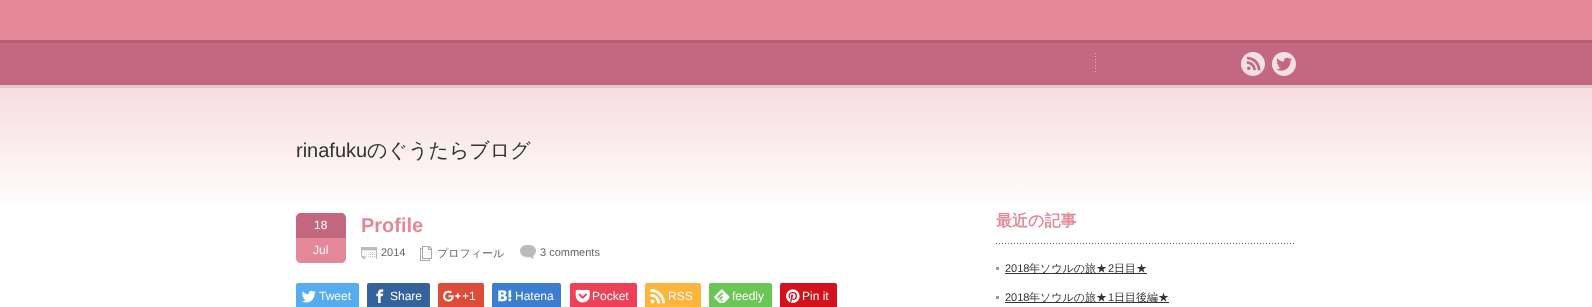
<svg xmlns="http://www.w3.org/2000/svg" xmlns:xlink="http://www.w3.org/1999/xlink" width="1592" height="307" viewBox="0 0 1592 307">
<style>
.cls-1{font:20px Liberation Sans;fill:#333333}
.cls-2{font:500 20px WenQuanYi Zen Hei;fill:#333333}
.cls-3{font:12px Liberation Sans;fill:#ffffff}
.cls-4{font:bold 20px Liberation Sans;fill:#e48898}
.cls-5{font:11px Liberation Sans;fill:#666666}
.cls-6{font:500 11px WenQuanYi Zen Hei;fill:#666666}
.cls-7{font:bold 16px WenQuanYi Zen Hei;fill:#e48898}
.cls-8{font:11px Liberation Sans;fill:#333333}
.cls-9{font:500 11px WenQuanYi Zen Hei;fill:#333333}
</style>
<defs>
<linearGradient id="g1" gradientUnits="userSpaceOnUse" x1="796" y1="85" x2="796" y2="213"><stop offset="0" stop-color="#f7dbdf"/><stop offset="1" stop-color="#ffffff"/></linearGradient>
</defs>
<rect width="100%" height="100%" fill="#ffffff"/>
<rect fill="#e48898" x="0" y="0" width="1592" height="40"/>
<rect fill="#b25e74" x="0" y="40" width="1592" height="3"/>
<rect fill="#c46780" x="0" y="43" width="1592" height="42"/>
<image xlink:href="image0.png" x="1095" y="53" width="1" height="19"/>
<image xlink:href="image1.png" x="1241" y="52" width="24" height="24"/>
<image xlink:href="image2.png" x="1272" y="52" width="24" height="24"/>
<rect fill="#e1c8cb" x="0" y="85" width="1592" height="3"/>
<rect fill="url(#g1)" x="0" y="88" width="1592" height="116"/>
<path fill="#c46780" d="M301 213H341C344 213 346 215 346 218V238H296V218C296 215 298 213 301 213Z"/>
<path fill="#e48898" d="M296 238H346V258C346 261 344 263 341 263H301C298 263 296 261 296 258Z"/>
<image xlink:href="image3.png" x="361" y="247" width="16" height="12"/>
<image xlink:href="image4.png" x="420" y="246" width="12" height="15"/>
<image xlink:href="image5.png" x="520" y="245" width="16" height="14"/>
<rect fill="#55acee" x="296" y="283" width="63" height="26" rx="2"/>
<image xlink:href="image6.png" x="301" y="290" width="15" height="13"/>
<rect fill="#35629a" x="367" y="283" width="63" height="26" rx="2"/>
<image xlink:href="image7.png" x="376" y="289" width="8" height="14"/>
<rect fill="#dd4b39" x="438" y="283" width="46" height="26" rx="2"/>
<image xlink:href="image8.png" x="443" y="290" width="18" height="12"/>
<rect fill="#3c7dd1" x="492" y="283" width="69" height="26" rx="2"/>
<image xlink:href="image9.png" x="498" y="290" width="14" height="12"/>
<rect fill="#ee4056" x="570" y="283" width="67" height="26" rx="2"/>
<image xlink:href="image10.png" x="575" y="289" width="15" height="14"/>
<rect fill="#ffb53c" x="645" y="283" width="56" height="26" rx="2"/>
<image xlink:href="image11.png" x="650" y="288" width="16" height="16"/>
<rect fill="#6cc655" x="709" y="283" width="63" height="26" rx="2"/>
<image xlink:href="image12.png" x="714" y="289" width="16" height="14"/>
<rect fill="#d4121c" x="780" y="283" width="57" height="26" rx="2"/>
<image xlink:href="image13.png" x="786" y="289" width="14" height="14"/>
<image xlink:href="image14.png" x="996" y="243" width="298" height="1"/>
<rect fill="#999999" x="996" y="267" width="3" height="3"/>
<rect fill="#333333" x="1005" y="273" width="142" height="1"/>
<rect fill="#999999" x="996" y="296" width="3" height="3"/>
<rect fill="#333333" x="1005" y="302" width="164" height="1"/>
<text class="cls-1" x="296" y="157">rinafuku</text>
<text class="cls-2" x="367" y="157">のぐうたらブログ</text>
<text class="cls-3" x="314" y="229">18</text>
<text class="cls-3" x="313" y="254">Jul</text>
<text class="cls-4" x="361" y="232">Profile</text>
<text class="cls-5" x="381" y="256">2014</text>
<text class="cls-6" x="437" y="257">プロフィール</text>
<text class="cls-5" x="540" y="256">3 comments</text>
<text class="cls-3" x="319" y="300">Tweet</text>
<text class="cls-3" x="390" y="300">Share</text>
<text class="cls-3" x="462" y="300">+1</text>
<text class="cls-3" x="515" y="300">Hatena</text>
<text class="cls-3" x="592" y="300">Pocket</text>
<text class="cls-3" x="668" y="300">RSS</text>
<text class="cls-3" x="732" y="300">feedly</text>
<text class="cls-3" x="802" y="300">Pin it</text>
<text class="cls-7" x="996" y="226">最近の記事</text>
<text class="cls-8" x="1005" y="272">2018</text>
<text class="cls-9" x="1029" y="272">年ソウルの旅★</text>
<text class="cls-8" x="1108" y="272">2</text>
<text class="cls-9" x="1114" y="272">日目★</text>
<text class="cls-8" x="1005" y="301">2018</text>
<text class="cls-9" x="1029" y="301">年ソウルの旅★</text>
<text class="cls-8" x="1108" y="301">1</text>
<text class="cls-9" x="1114" y="301">日目後編★</text>
</svg>
